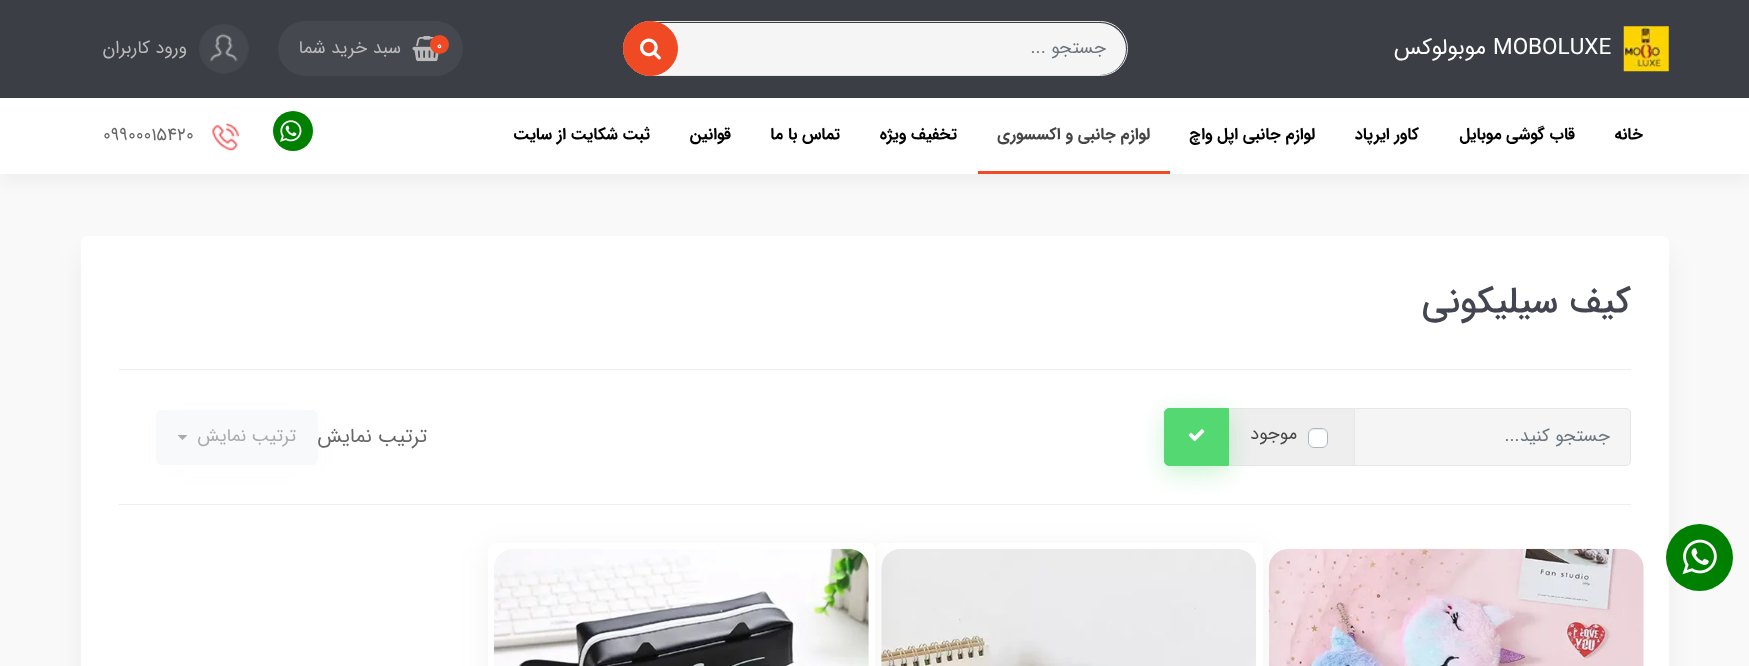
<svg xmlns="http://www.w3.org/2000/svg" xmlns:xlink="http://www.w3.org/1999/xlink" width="1749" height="666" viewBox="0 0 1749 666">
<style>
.cls-1{font:22.5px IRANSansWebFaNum;fill:#ffffff}
.cls-2{font:22.5px IRANSansWebFaNum;direction:rtl;fill:#ffffff}
.cls-3{font:18px IRANSansWebFaNum;direction:rtl;fill:#6c757d}
.cls-4{font:bold 11px IRANSansWebFaNum;fill:#ffffff}
.cls-5{font:18px IRANSansWebFaNum;direction:rtl;fill:#bbbbbb}
.cls-6{font:bold 16.25px IRANSansWebFaNum;direction:rtl;fill:#000000}
.cls-7{font:bold 16.25px IRANSansWebFaNum;direction:rtl;fill:#444444}
.cls-8{font:18px IRANSansWebFaNum;fill:#666666}
.cls-9{font:500 36px IRANSansWebFaNum;direction:rtl;fill:#434550}
.cls-10{font:18px IRANSansWebFaNum;direction:rtl;fill:#444444}
.cls-11{font:20px IRANSansWebFaNum;direction:rtl;fill:#666666}
.cls-12{font:18px IRANSansWebFaNum;direction:rtl;fill:#aaaaaa}
</style>
<rect width="100%" height="100%" fill="#f9f9f9"/>
<rect fill="#000000" fill-opacity="0.05" filter="blur(9.5px)" x="0" y="6" width="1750" height="174"/>
<rect fill="#3c3e46" x="0" y="0" width="1749" height="98"/>
<image xlink:href="image0.png" x="1623" y="26" width="46" height="46"/>
<rect fill="#f5f5f5" x="624" y="23" width="502" height="52" rx="26"/>
<rect fill="none" stroke="#e7e7e7" x="623.5" y="21.5" width="504" height="54" rx="27"/>
<circle fill="#ef4a23" stroke="#ef4a23" cx="650.5" cy="48.5" r="27"/>
<image xlink:href="image1.png" x="640" y="38" width="21" height="22"/>
<rect fill="#46484f" x="278" y="21" width="185" height="55" rx="27.5"/>
<image xlink:href="image2.png" x="412" y="36" width="27" height="26"/>
<circle fill="#ef4a23" cx="439.5" cy="44.5" r="9.5"/>
<image xlink:href="image3.png" x="199" y="24" width="50" height="50"/>
<rect fill="#ffffff" x="0" y="98" width="1749" height="76"/>
<rect fill="#ef4a23" x="978" y="171" width="192" height="3"/>
<circle fill="#008000" cx="293" cy="131" r="20"/>
<image xlink:href="image4.png" x="280" y="120" width="22" height="22"/>
<image xlink:href="image5.png" x="212" y="123" width="27" height="28"/>
<rect fill="#000000" fill-opacity="0.05" filter="blur(12.5px)" x="81" y="255" width="1588" height="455" rx="6"/>
<rect fill="#ffffff" x="81" y="236" width="1588" height="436" rx="6"/>
<rect fill="#eeeeee" x="119" y="369" width="1512" height="1"/>
<rect fill="#eeeeee" stroke="#e7e7e7" x="1229.5" y="408.5" width="125" height="57"/>
<path fill="#f5f5f5" stroke="#e7e7e7" d="M1354.5 408.5H1626C1628.5 408.5 1630.5 410.5 1630.5 413V461C1630.5 463.5 1628.5 465.5 1626 465.5H1354.5Z"/>
<rect fill="#ffffff" x="1308" y="428" width="20" height="20" rx="6"/>
<path fill="#ececec" fill-rule="evenodd" d="M1314 430H1323C1325 431 1326 432.5 1326 434C1326 429 1321.5 429 1317.5 429C1314.5 429 1311.5 428.5 1310 431C1308.5 433 1309 436 1309 438C1309 434 1309 430 1314 430ZM1326 440V441.5Z"/>
<rect fill="none" stroke="#adb5bd" x="1308.5" y="428.5" width="19" height="19" rx="5.5"/>
<rect fill="#eeeeee" x="119" y="504" width="1512" height="1"/>
<rect fill="#54d872" fill-opacity="0.3" filter="blur(12.5px)" x="1164" y="414" width="65" height="59" rx="5"/>
<path fill="#54d872" stroke="#54d872" d="M1169 408.5H1228.5V465.5H1169C1166.5 465.5 1164.5 463.5 1164.5 461V413C1164.5 410.5 1166.5 408.5 1169 408.5Z"/>
<image xlink:href="image6.png" x="1188" y="429" width="17" height="13"/>
<rect fill="#f8f9fa" fill-opacity="0.3" filter="blur(12.5px)" x="156" y="416" width="162" height="55" rx="6"/>
<rect fill="#f8f9fa" x="156" y="410" width="162" height="55" rx="6"/>
<path fill="#aaaaaa" d="M177.5 435H187.5L182.5 440Z"/>
<image xlink:href="image7.png" x="1268" y="548" width="376" height="118"/>
<rect fill="#000000" fill-opacity="0.05" filter="blur(15.5px)" x="875" y="549" width="388" height="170" rx="6"/>
<rect fill="#ffffff" x="875" y="543" width="388" height="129" rx="6"/>
<image xlink:href="image8.png" x="881" y="549" width="375" height="117"/>
<rect fill="#000000" fill-opacity="0.05" filter="blur(15.5px)" x="488" y="549" width="387" height="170" rx="6"/>
<rect fill="#ffffff" x="488" y="543" width="387" height="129" rx="6"/>
<image xlink:href="image9.png" x="493" y="548" width="376" height="118"/>
<circle fill="#008000" cx="1699.5" cy="557.5" r="33.5"/>
<image xlink:href="image10.png" x="1682" y="539" width="35" height="36"/>
<text class="cls-1" x="1493" y="54">MOBOLUXE</text>
<text class="cls-2" x="1486" y="54">موبولوکس</text>
<text class="cls-3" x="1106" y="53">جستجو ...</text>
<text class="cls-4" x="437" y="49">0</text>
<text class="cls-5" x="401" y="53">سبد خرید شما</text>
<text class="cls-5" x="187" y="53">ورود کاربران</text>
<text class="cls-6" x="1643" y="139">خانه</text>
<text class="cls-6" x="1575" y="139">قاب گوشی موبایل</text>
<text class="cls-6" x="1419" y="139">کاور ایرپاد</text>
<text class="cls-6" x="1315" y="139">لوازم جانبی اپل واچ</text>
<text class="cls-7" x="1150" y="139">لوازم جانبی و اکسسوری</text>
<text class="cls-6" x="957" y="139">تخفیف ویژه</text>
<text class="cls-6" x="840" y="139">تماس با ما</text>
<text class="cls-6" x="731" y="139">قوانین</text>
<text class="cls-6" x="650" y="139">ثبت شکایت از سایت</text>
<text class="cls-8" x="103" y="140">۰۹۹۰۰۰۱۵۴۲۰</text>
<text class="cls-9" x="1631" y="312">کیف سیلیکونی</text>
<text class="cls-3" x="1610" y="441">جستجو کنید...</text>
<text class="cls-10" x="1297" y="439">موجود</text>
<text class="cls-11" x="427" y="442">ترتیب نمایش</text>
<text class="cls-12" x="296" y="441">ترتیب نمایش</text>
</svg>
